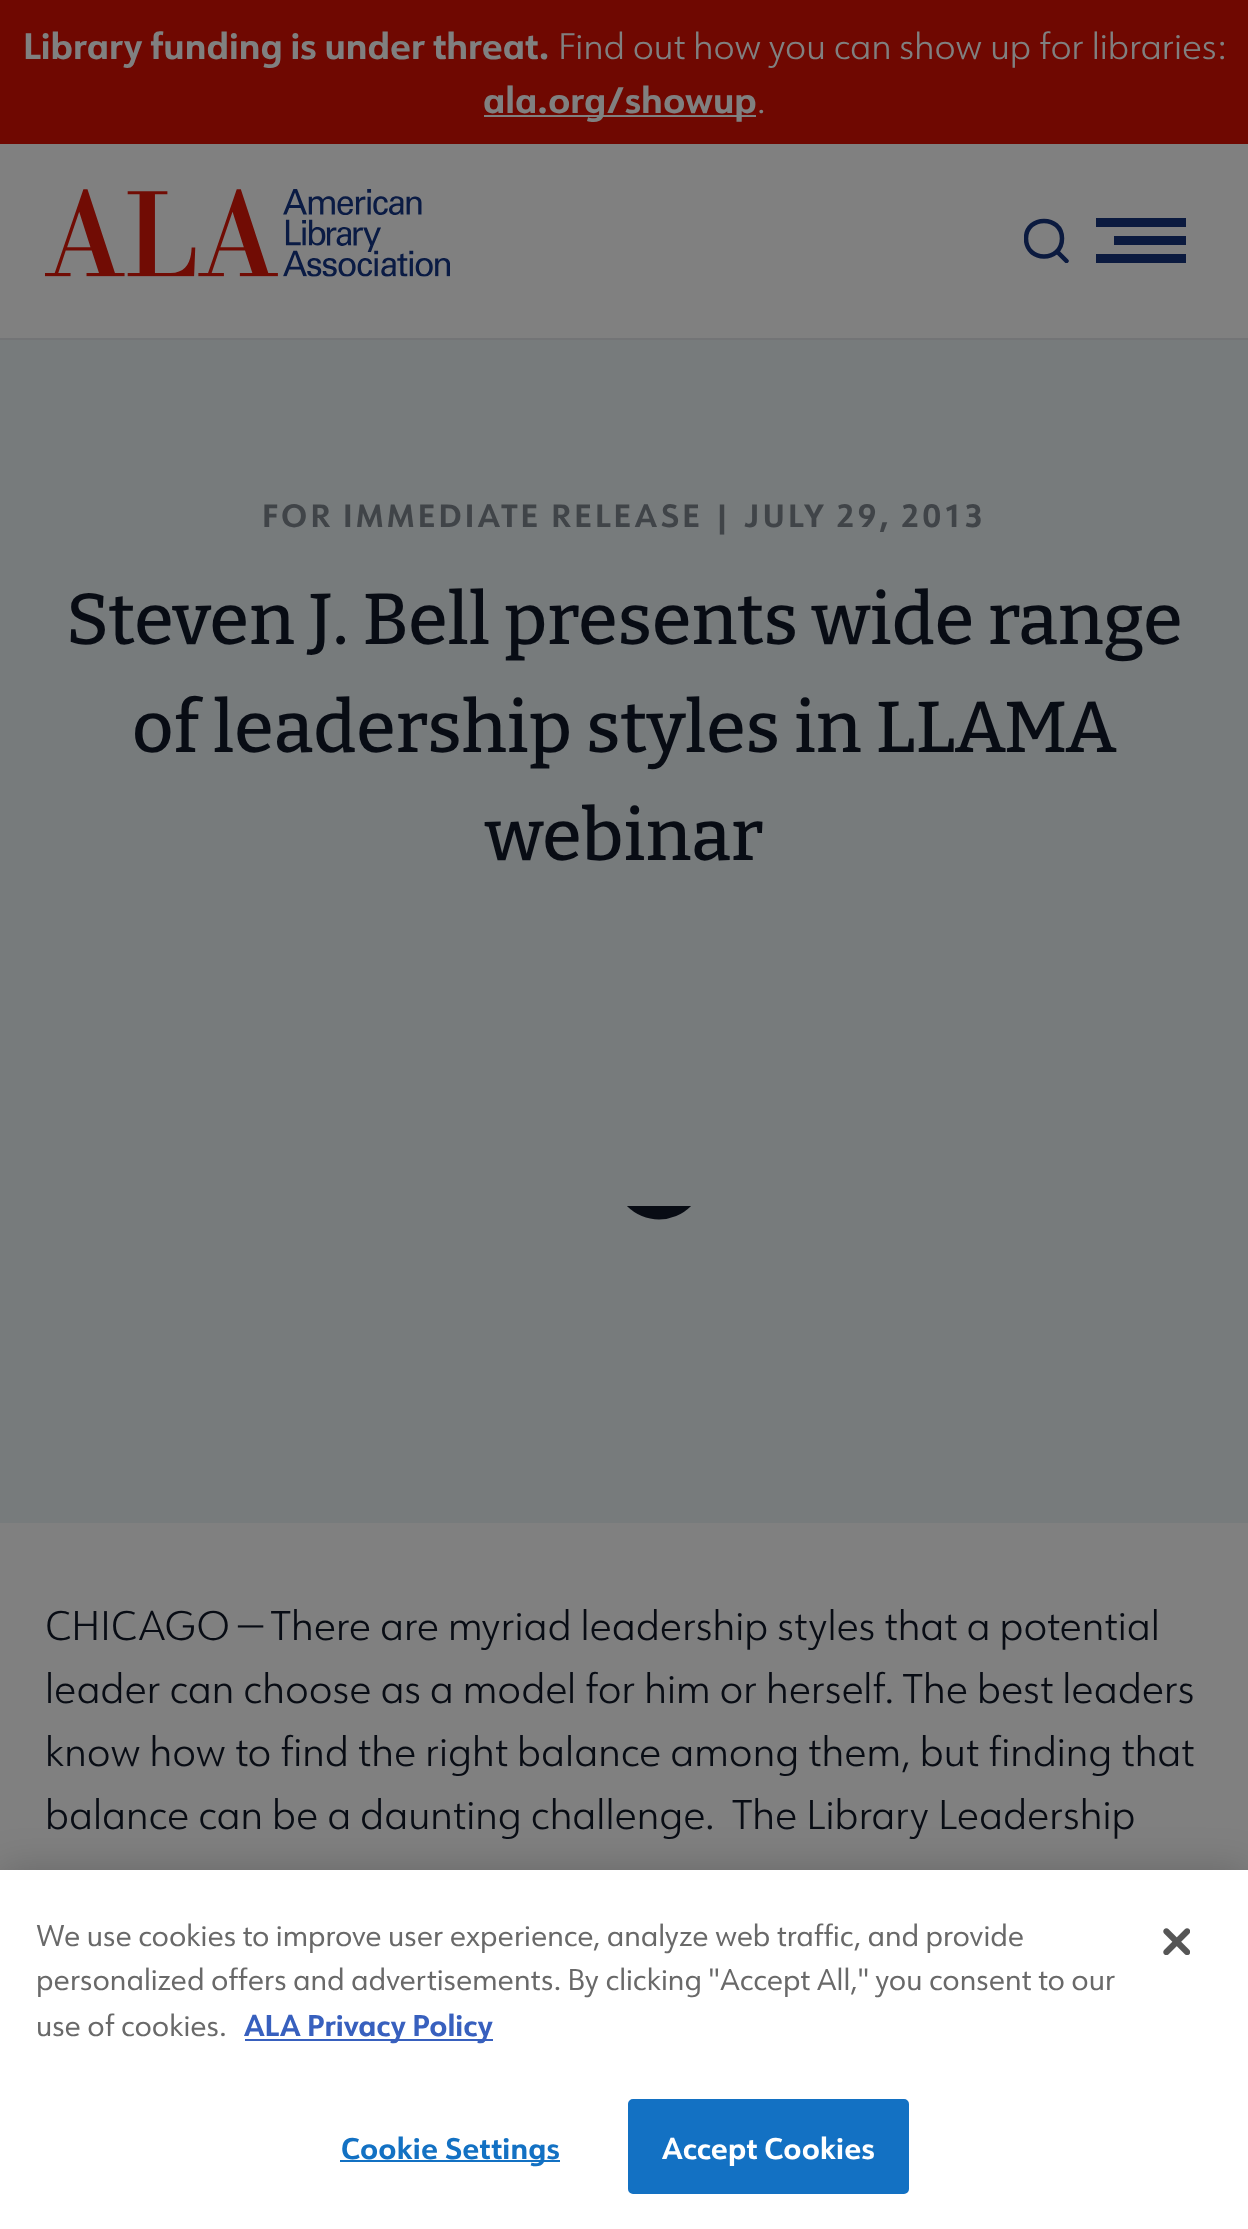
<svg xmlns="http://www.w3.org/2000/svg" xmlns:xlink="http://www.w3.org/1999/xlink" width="1248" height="2229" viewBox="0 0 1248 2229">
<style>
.cls-1{font:bold 36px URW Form;fill:#808080}
.cls-2{font:300 36px URW Form;fill:#808080}
.cls-3{font:bold 31.5px URW Form;letter-spacing:3.15px;fill:#404448}
.cls-4{font:500 72px Bitter;fill:#080c14}
.cls-5{font:300 40.5px URW Form;fill:#080c14}
.cls-6{font:29.25px URW Form;fill:#696969}
.cls-7{font:bold 29.25px URW Form;fill:#3860be}
.cls-8{font:bold 29.25px URW Form;letter-spacing:0.25px;fill:#1371c3}
.cls-9{font:bold 29.25px URW Form;letter-spacing:0.25px;fill:#ffffff}
</style>
<defs>
<clipPath id="clip1"><rect x="1024" y="218" width="45" height="45"/></clipPath>
<clipPath id="clip2"><rect x="614" y="1206" width="90" height="14"/></clipPath>
</defs>
<rect width="100%" height="100%" fill="#808080"/>
<rect fill="#737476" x="0" y="338" width="1248" height="2"/>
<rect fill="#6f0801" x="0" y="0" width="1248" height="144"/>
<rect fill="#808080" x="484" y="115" width="272" height="2"/>
<image xlink:href="image0.png" x="45" y="189" width="405" height="88"/>
<g clip-path="url(#clip1)">
<path fill="none" stroke="#0b1a3f" stroke-width="4.5" stroke-linecap="round" d="M1066.5 261L1057 251.5M1062 238.5C1062 262.5 1026 262.5 1026 238.5C1026 215 1062 215 1062 238.5Z"/>
</g>
<rect fill="#0b1a3f" x="1096" y="218" width="90" height="9"/>
<rect fill="#0b1a3f" x="1114" y="236" width="72" height="9"/>
<rect fill="#0b1a3f" x="1096" y="254" width="90" height="9"/>
<rect fill="#777b7c" x="0" y="340" width="1248" height="1183"/>
<g clip-path="url(#clip2)">
<circle fill="#080c14" cx="659" cy="1174.5" r="45"/>
</g>
<rect fill="#000000" fill-opacity="0.2" filter="blur(20px)" x="0" y="1870" width="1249" height="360"/>
<rect fill="#ffffff" x="0" y="1870" width="1248" height="359"/>
<rect fill="#3860be" x="245" y="2039" width="248" height="2"/>
<rect fill="#1371c3" x="340" y="2160" width="220" height="2"/>
<rect fill="#1371c3" stroke="#1371c3" stroke-width="2" x="629" y="2100" width="279" height="93" rx="4"/>
<image xlink:href="image1.png" x="1163" y="1928" width="27" height="27"/>
<text class="cls-1" x="23" y="59">Library funding is under threat.</text>
<text class="cls-2" x="558" y="59">Find out how you can show up for libraries:</text>
<text class="cls-1" x="483" y="113">ala.org/showup</text>
<text class="cls-2" x="757" y="113">.</text>
<text class="cls-3" x="262" y="527">FOR IMMEDIATE RELEASE | JULY 29, 2013</text>
<text class="cls-4" x="66" y="644">Steven J. Bell presents wide range</text>
<text class="cls-4" x="132" y="752">of leadership styles in LLAMA</text>
<text class="cls-4" x="485" y="860">webinar</text>
<text class="cls-5" xml:space="preserve"><tspan x="45" y="1640">CHICAGO — There are myriad leadership styles that a potential</tspan><tspan x="45" y="1703">leader can choose as a model for him or herself. The best leaders</tspan><tspan x="45" y="1766">know how to find the right balance among them, but finding that</tspan><tspan x="45" y="1829">balance can be a daunting challenge.  The Library Leadership</tspan></text>
<text class="cls-6"><tspan x="36" y="1946">We use cookies to improve user experience, analyze web traffic, and provide</tspan><tspan x="36" y="1990">personalized offers and advertisements. By clicking "Accept All," you consent to our</tspan><tspan x="36" y="2036">use of cookies.</tspan></text>
<text class="cls-7" x="244" y="2036">ALA Privacy Policy</text>
<text class="cls-8" x="341" y="2159">Cookie Settings</text>
<text class="cls-9" x="662" y="2159">Accept Cookies</text>
</svg>
